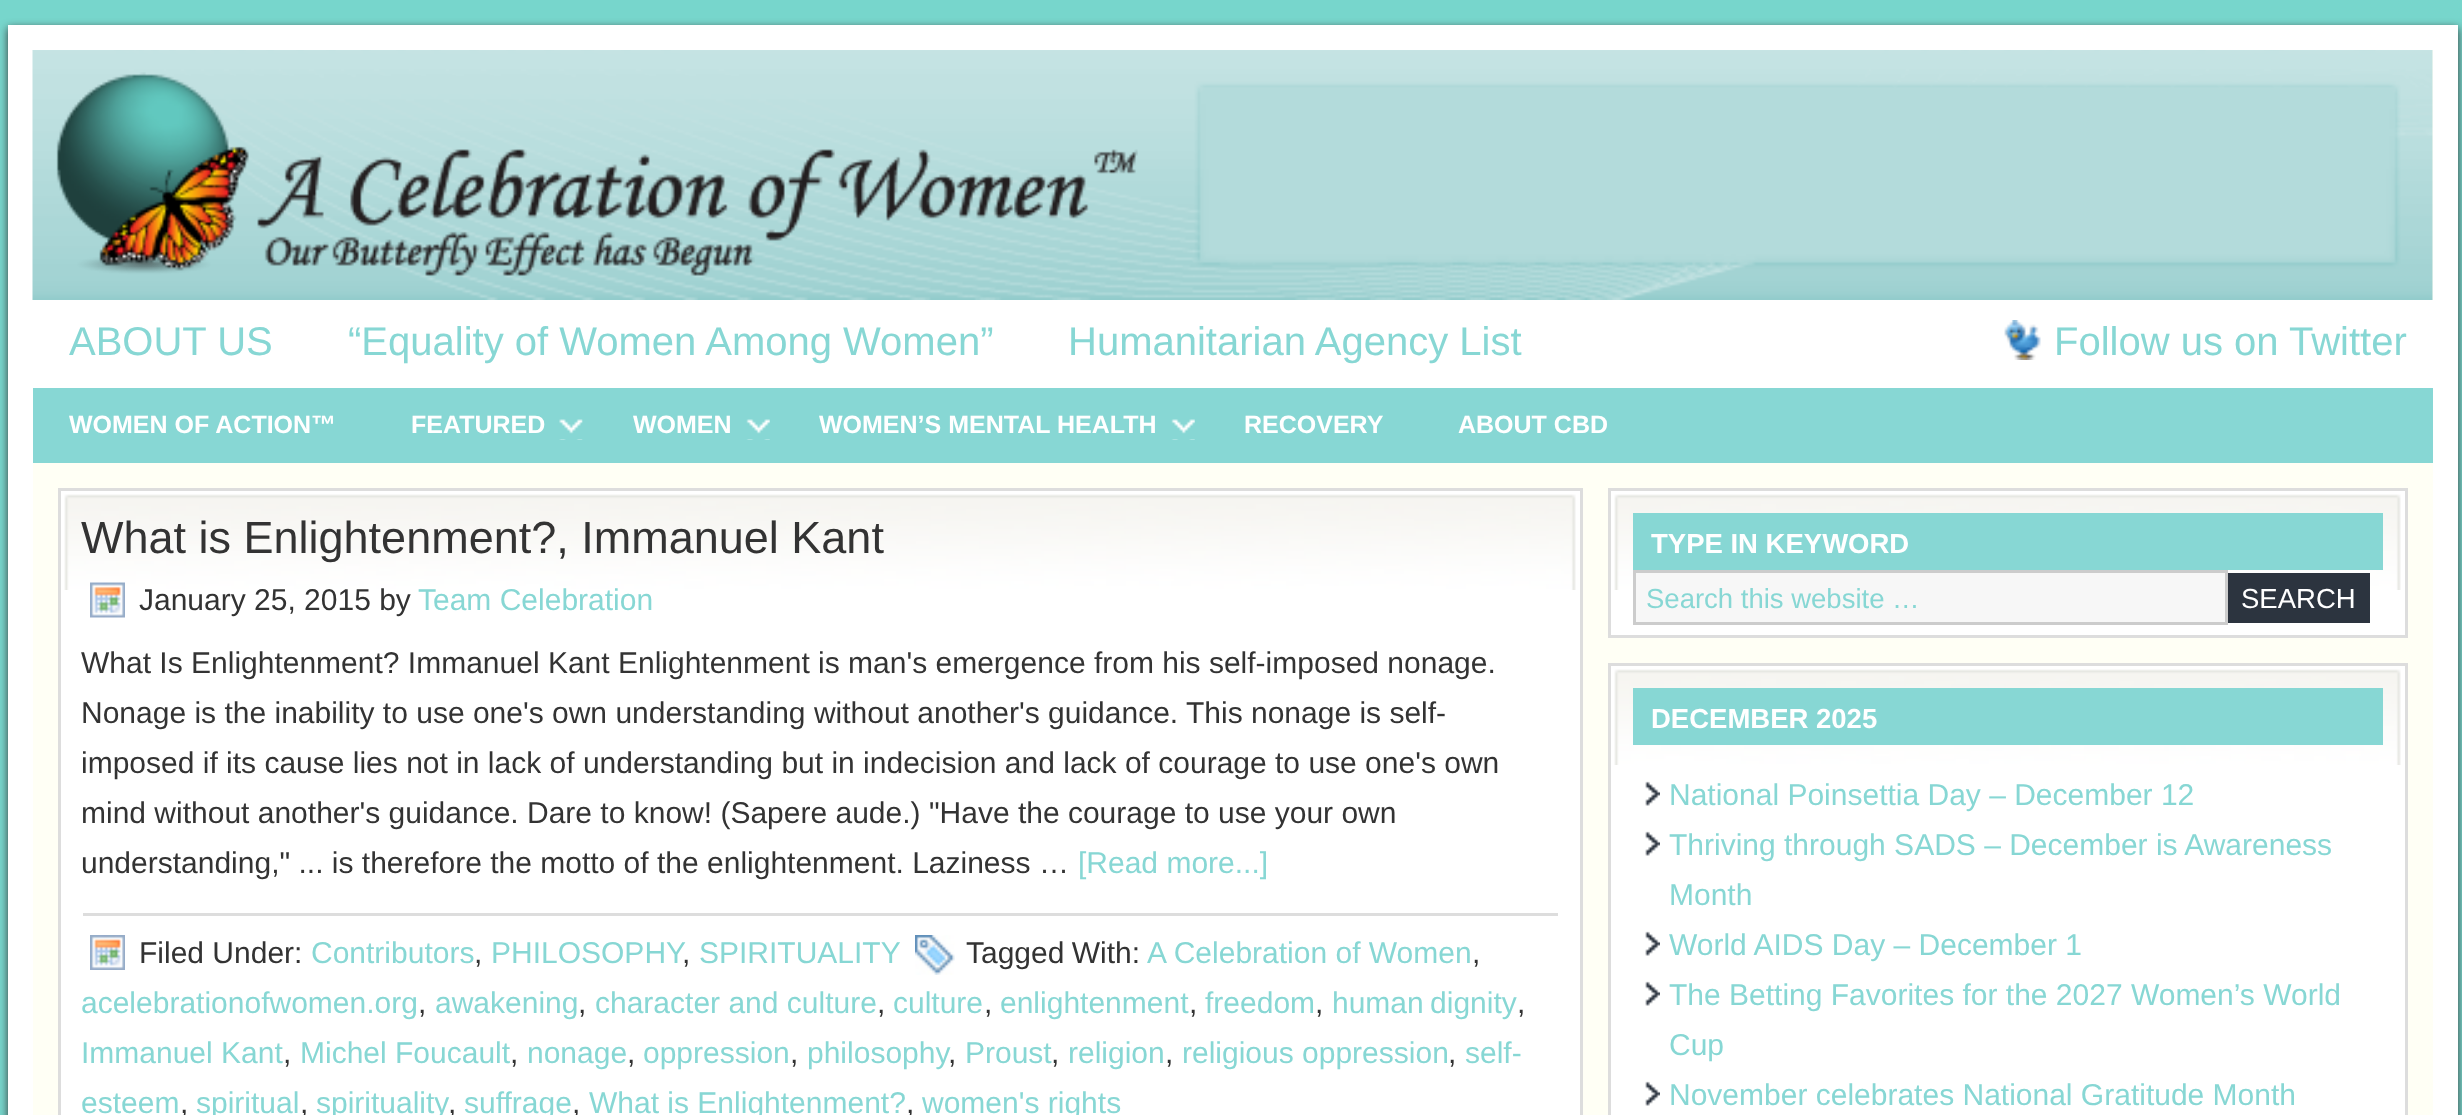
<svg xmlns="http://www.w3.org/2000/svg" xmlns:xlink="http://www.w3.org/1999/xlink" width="2462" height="1115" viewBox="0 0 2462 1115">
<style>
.cls-1{font:40px Liberation Sans;fill:#87d7d4}
.cls-2{font:bold 25px Liberation Sans;fill:#ffffff}
.cls-3{font:45px Liberation Sans;fill:#333333}
.cls-4{font:30px Liberation Sans;fill:#333333}
.cls-5{font:30px Liberation Sans;fill:#87d7d4}
.cls-6{font:bold 27.5px Liberation Sans;fill:#ffffff}
.cls-7{font:27.5px Liberation Sans;fill:#87d7d4}
.cls-8{font:27.5px Liberation Sans;fill:#ffffff}
</style>
<rect width="100%" height="100%" fill="#77d6cc"/>
<rect fill="#333333" filter="blur(4px)" x="8" y="28" width="2450" height="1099"/>
<rect fill="#fffff5" stroke="#ffffff" stroke-width="25" x="20.5" y="37.5" width="2425" height="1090"/>
<image xlink:href="image0.png" x="32" y="50" width="2401" height="250"/>
<image xlink:href="image1.png" x="56" y="72" width="1082" height="204"/>
<rect fill="#ffffff" x="33" y="300" width="2400" height="88"/>
<image xlink:href="image2.png" x="2004" y="320" width="37" height="40"/>
<rect fill="#87d7d4" x="33" y="388" width="2400" height="75"/>
<image xlink:href="image3.png" x="559" y="419" width="24" height="21"/>
<image xlink:href="image4.png" x="746" y="419" width="24" height="21"/>
<image xlink:href="image4.png" x="1171" y="419" width="24" height="21"/>
<rect fill="#ffffff" x="61" y="491" width="1519" height="624"/>
<image xlink:href="image5.png" x="64" y="494" width="1512" height="96"/>
<rect fill="none" stroke="#dddddd" stroke-width="3" x="59.5" y="489.5" width="1522" height="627"/>
<image xlink:href="image6.png" x="90" y="582" width="35" height="36"/>
<rect fill="#dddddd" x="83" y="913" width="1475" height="3"/>
<image xlink:href="image7.png" x="90" y="935" width="35" height="35"/>
<image xlink:href="image8.png" x="915" y="935" width="40" height="40"/>
<rect fill="#ffffff" x="1611" y="491" width="794" height="144"/>
<image xlink:href="image9.png" x="1614" y="494" width="787" height="96"/>
<rect fill="none" stroke="#dddddd" stroke-width="3" x="1609.5" y="489.5" width="797" height="147"/>
<rect fill="#87d7d4" x="1633" y="513" width="750" height="57"/>
<rect fill="#f7f7f7" stroke="#cccccc" stroke-width="3" x="1634.5" y="571.5" width="592" height="52"/>
<rect fill="#2c343f" x="2228" y="573" width="142" height="50"/>
<rect fill="#ffffff" x="1611" y="666" width="794" height="449"/>
<image xlink:href="image9.png" x="1614" y="669" width="787" height="96"/>
<rect fill="none" stroke="#dddddd" stroke-width="3" x="1609.5" y="664.5" width="797" height="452"/>
<rect fill="#87d7d4" x="1633" y="688" width="750" height="57"/>
<image xlink:href="image10.png" x="1645" y="781" width="15" height="25"/>
<image xlink:href="image10.png" x="1645" y="831" width="15" height="25"/>
<image xlink:href="image10.png" x="1645" y="931" width="15" height="25"/>
<image xlink:href="image10.png" x="1645" y="981" width="15" height="25"/>
<image xlink:href="image10.png" x="1645" y="1081" width="15" height="25"/>
<text class="cls-1" x="69" y="355">ABOUT US</text>
<text class="cls-1" x="348" y="355">“Equality of Women Among Women”</text>
<text class="cls-1" x="1068" y="355">Humanitarian Agency List</text>
<text class="cls-1" x="2054" y="355">Follow us on Twitter</text>
<text class="cls-2" x="69" y="433">WOMEN OF ACTION™</text>
<text class="cls-2" x="411" y="433">FEATURED</text>
<text class="cls-2" x="633" y="433">WOMEN</text>
<text class="cls-2" x="819" y="433">WOMEN’S MENTAL HEALTH</text>
<text class="cls-2" x="1244" y="433">RECOVERY</text>
<text class="cls-2" x="1458" y="433">ABOUT CBD</text>
<text class="cls-3" x="81" y="553">What is Enlightenment?, Immanuel Kant</text>
<text class="cls-4" x="139" y="610">January 25, 2015 by</text>
<text class="cls-5" x="418" y="610">Team Celebration</text>
<text class="cls-4"><tspan x="81" y="673">What Is Enlightenment? Immanuel Kant Enlightenment is man's emergence from his self-imposed nonage.</tspan><tspan x="81" y="723">Nonage is the inability to use one's own understanding without another's guidance. This nonage is self-</tspan><tspan x="81" y="773">imposed if its cause lies not in lack of understanding but in indecision and lack of courage to use one's own</tspan><tspan x="81" y="823">mind without another's guidance. Dare to know! (Sapere aude.) "Have the courage to use your own</tspan><tspan x="81" y="873">understanding," ... is therefore the motto of the enlightenment. Laziness …</tspan></text>
<text class="cls-5" x="1078" y="873">[Read more...]</text>
<text class="cls-4" x="139" y="963">Filed Under:</text>
<text class="cls-5" x="311" y="963">Contributors</text>
<text class="cls-4" x="474" y="963">,</text>
<text class="cls-5" x="491" y="963">PHILOSOPHY</text>
<text class="cls-4" x="682" y="963">,</text>
<text class="cls-5" x="699" y="963">SPIRITUALITY</text>
<text class="cls-4" x="966" y="963" word-spacing="-1">Tagged With:</text>
<text class="cls-5" x="1147" y="963">A Celebration of Women</text>
<text class="cls-4" x="1472" y="963">,</text>
<text class="cls-5" x="81" y="1013">acelebrationofwomen.org</text>
<text class="cls-4" x="418" y="1013">,</text>
<text class="cls-5" x="435" y="1013">awakening</text>
<text class="cls-4" x="578" y="1013">,</text>
<text class="cls-5" x="595" y="1013">character and culture</text>
<text class="cls-4" x="877" y="1013">,</text>
<text class="cls-5" x="893" y="1013">culture</text>
<text class="cls-4" x="984" y="1013">,</text>
<text class="cls-5" x="1000" y="1013">enlightenment</text>
<text class="cls-4" x="1189" y="1013">,</text>
<text class="cls-5" x="1205" y="1013">freedom</text>
<text class="cls-4" x="1315" y="1013">,</text>
<text class="cls-5" x="1332" y="1013" word-spacing="-2">human dignity</text>
<text class="cls-4" x="1517" y="1013">,</text>
<text class="cls-5" x="81" y="1063">Immanuel Kant</text>
<text class="cls-4" x="283" y="1063">,</text>
<text class="cls-5" x="300" y="1063">Michel Foucault</text>
<text class="cls-4" x="510" y="1063">,</text>
<text class="cls-5" x="527" y="1063">nonage</text>
<text class="cls-4" x="627" y="1063">,</text>
<text class="cls-5" x="643" y="1063">oppression</text>
<text class="cls-4" x="790" y="1063">,</text>
<text class="cls-5" x="807" y="1063">philosophy</text>
<text class="cls-4" x="948" y="1063">,</text>
<text class="cls-5" x="965" y="1063">Proust</text>
<text class="cls-4" x="1051" y="1063">,</text>
<text class="cls-5" x="1068" y="1063">religion</text>
<text class="cls-4" x="1165" y="1063">,</text>
<text class="cls-5" x="1182" y="1063">religious oppression</text>
<text class="cls-4" x="1448" y="1063">,</text>
<text class="cls-5" x="1465" y="1063">self-</text>
<text class="cls-5" x="81" y="1113">esteem</text>
<text class="cls-4" x="180" y="1113">,</text>
<text class="cls-5" x="196" y="1113">spiritual</text>
<text class="cls-4" x="300" y="1113">,</text>
<text class="cls-5" x="316" y="1113">spirituality</text>
<text class="cls-4" x="448" y="1113">,</text>
<text class="cls-5" x="464" y="1113">suffrage</text>
<text class="cls-4" x="572" y="1113">,</text>
<text class="cls-5" x="589" y="1113">What is Enlightenment?</text>
<text class="cls-4" x="906" y="1113">,</text>
<text class="cls-5" x="922" y="1113">women's rights</text>
<text class="cls-6" x="1651" y="553">TYPE IN KEYWORD</text>
<text class="cls-7" x="1646" y="608">Search this website …</text>
<text class="cls-8" x="2241" y="608">SEARCH</text>
<text class="cls-6" x="1651" y="728">DECEMBER 2025</text>
<text class="cls-5"><tspan x="1669" y="805">National Poinsettia Day – December 12</tspan><tspan x="1669" y="855">Thriving through SADS – December is Awareness</tspan><tspan x="1669" y="905">Month</tspan><tspan x="1669" y="955">World AIDS Day – December 1</tspan><tspan x="1669" y="1005">The Betting Favorites for the 2027 Women’s World</tspan><tspan x="1669" y="1055">Cup</tspan><tspan x="1669" y="1105">November celebrates National Gratitude Month</tspan></text>
</svg>
